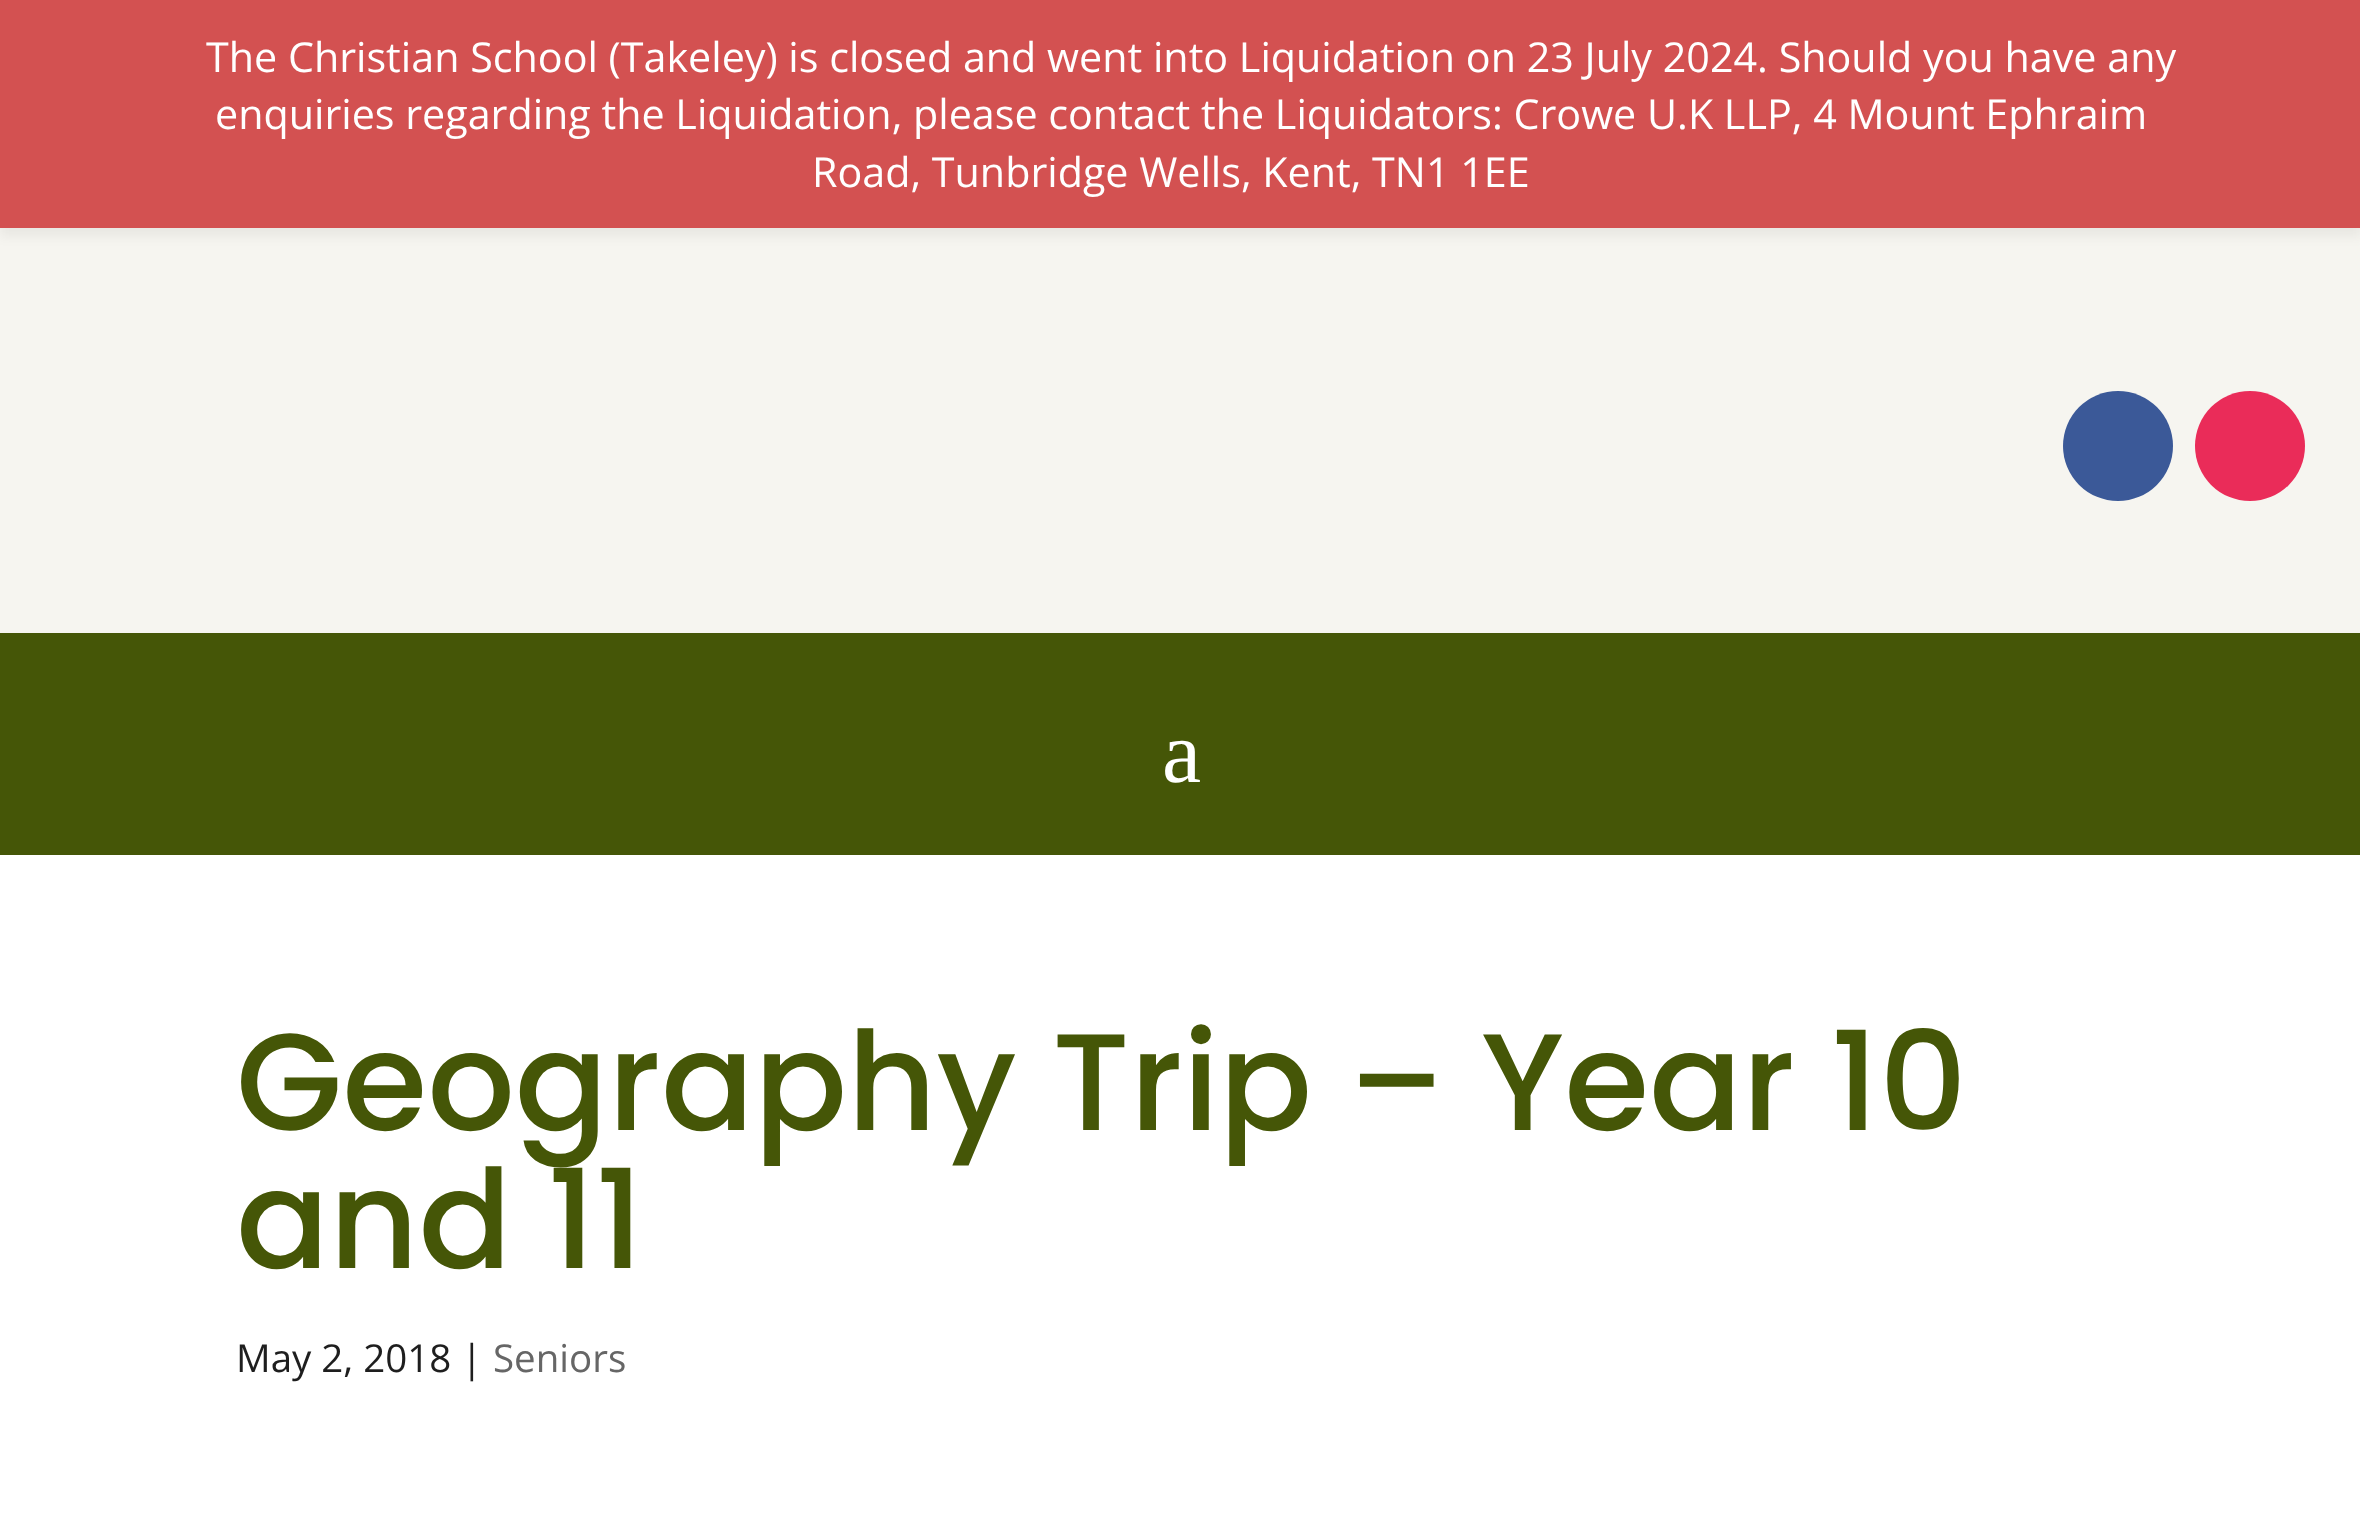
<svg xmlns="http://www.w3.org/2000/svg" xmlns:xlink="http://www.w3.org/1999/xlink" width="2360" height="1519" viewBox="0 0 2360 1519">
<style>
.cls-1{font:41.25px Open Sans;fill:#ffffff}
.cls-2{font:88px Liberation Serif;fill:#ffffff}
.cls-3{font:500 137.5px Poppins;fill:#455607}
.cls-4{font:38.5px Open Sans;fill:#1e1e1e}
.cls-5{font:38.5px Open Sans;fill:#666666}
</style>
<rect width="100%" height="100%" fill="#ffffff"/>
<rect fill="#f6f5f0" x="0" y="228" width="2360" height="405"/>
<rect fill="#000000" fill-opacity="0.05" filter="blur(5.5px)" x="0" y="8" width="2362" height="229"/>
<rect fill="#d35151" x="0" y="0" width="2360" height="228"/>
<circle fill="#3b5998" cx="2118" cy="446" r="55"/>
<circle fill="#ea2c59" cx="2250" cy="446" r="55"/>
<rect fill="#455607" x="0" y="633" width="2360" height="222"/>
<text class="cls-1" x="206" y="72">The Christian School (Takeley) is closed and went into Liquidation on 23 July 2024. Should you have any</text>
<text class="cls-1" x="215" y="129">enquiries regarding the Liquidation, please contact the Liquidators: Crowe U.K LLP, 4 Mount Ephraim</text>
<text class="cls-1" x="812" y="187">Road, Tunbridge Wells, Kent, TN1 1EE</text>
<text class="cls-2" x="1162" y="782">a</text>
<text class="cls-3"><tspan x="236" y="1130">Geography Trip – Year 10</tspan><tspan x="236" y="1268">and 11</tspan></text>
<text class="cls-4" x="236" y="1372">May 2, 2018 |</text>
<text class="cls-5" x="493" y="1372">Seniors</text>
</svg>
